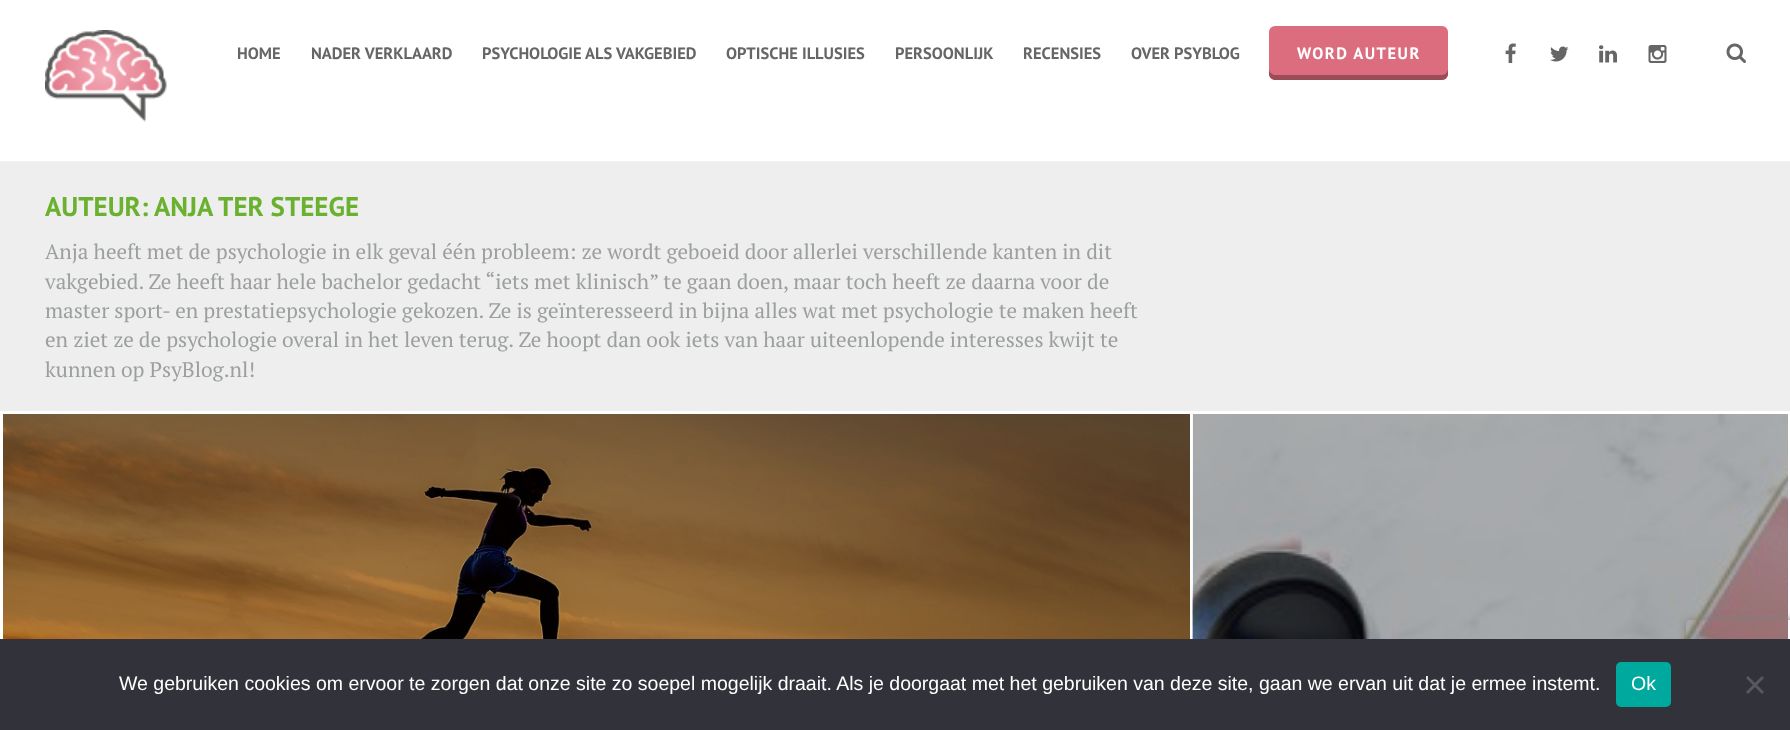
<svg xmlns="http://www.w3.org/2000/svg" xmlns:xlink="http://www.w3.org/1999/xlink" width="1790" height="730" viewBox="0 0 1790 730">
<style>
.cls-1{font:bold 16.5px PT Sans;fill:#666666}
.cls-2{font:bold 16.5px PT Sans;letter-spacing:1.5px;fill:#ffffff}
.cls-3{font:bold 27px PT Sans;fill:#6bb130}
.cls-4{font:21px PT Serif;fill:#9c9fa0}
.cls-5{font:19.5px Liberation Sans;fill:#ffffff}
</style>
<defs>
<clipPath id="clip1"><path d="M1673 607H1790V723H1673ZM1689 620H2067C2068.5 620 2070 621.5 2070 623V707C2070 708.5 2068.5 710 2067 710H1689C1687.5 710 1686 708.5 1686 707V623C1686 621.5 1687.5 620 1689 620Z" clip-rule="evenodd"/></clipPath>
</defs>
<rect width="100%" height="100%" fill="#ffffff"/>
<image xlink:href="image0.png" x="45" y="30" width="122" height="92"/>
<rect fill="#dc6d7f" x="1269" y="26" width="179" height="54" rx="6"/>
<path fill="#9a4c59" d="M1269 69V74C1269 77 1272 80 1275 80H1442C1445 80 1448 77 1448 74V69C1448 72 1445 75 1442 75H1275C1272 75 1269 72 1269 69Z"/>
<image xlink:href="image1.png" x="1505" y="43" width="11" height="20"/>
<image xlink:href="image2.png" x="1550" y="46" width="19" height="16"/>
<image xlink:href="image3.png" x="1599" y="45" width="18" height="18"/>
<image xlink:href="image4.png" x="1648" y="45" width="19" height="18"/>
<image xlink:href="image5.png" x="1726" y="43" width="20" height="20"/>
<rect fill="#eeeeee" x="0" y="163" width="1790" height="248"/>
<rect fill="#f0f0f0" x="0" y="161" width="1790" height="2"/>
<image xlink:href="image6.png" x="3" y="414" width="1187" height="225"/>
<image xlink:href="image7.png" x="1192" y="414" width="596" height="225"/>
<g clip-path="url(#clip1)">
<rect fill="#808080" filter="blur(4px)" x="1686" y="620" width="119" height="90" rx="3"/>
</g>
<rect fill="#32323a" x="0" y="639" width="1790" height="91"/>
<rect fill="#00a99d" x="1616" y="662" width="55" height="45" rx="5"/>
<path fill="#59595d" d="M1762 676L1764 678L1748 694L1746 692Z"/>
<path fill="#59595d" d="M1746 678L1748 676L1764 692L1762 694Z"/>
<text class="cls-1" x="237" y="59">HOME</text>
<text class="cls-1" x="311" y="59">NADER VERKLAARD</text>
<text class="cls-1" x="482" y="59">PSYCHOLOGIE ALS VAKGEBIED</text>
<text class="cls-1" x="726" y="59">OPTISCHE ILLUSIES</text>
<text class="cls-1" x="895" y="59">PERSOONLIJK</text>
<text class="cls-1" x="1023" y="59">RECENSIES</text>
<text class="cls-1" x="1131" y="59">OVER PSYBLOG</text>
<text class="cls-2" x="1297" y="59">WORD AUTEUR</text>
<text class="cls-3" x="45" y="216">AUTEUR:</text>
<text class="cls-3" x="154" y="216">ANJA TER STEEGE</text>
<text class="cls-4"><tspan x="45" y="259">Anja heeft met de psychologie in elk geval één probleem: ze wordt geboeid door allerlei verschillende kanten in dit</tspan><tspan x="45" y="289">vakgebied. Ze heeft haar hele bachelor gedacht “iets met klinisch” te gaan doen, maar toch heeft ze daarna voor de</tspan><tspan x="45" y="318">master sport- en prestatiepsychologie gekozen. Ze is geïnteresseerd in bijna alles wat met psychologie te maken heeft</tspan><tspan x="45" y="347">en ziet ze de psychologie overal in het leven terug. Ze hoopt dan ook iets van haar uiteenlopende interesses kwijt te</tspan><tspan x="45" y="377">kunnen op PsyBlog.nl!</tspan></text>
<text class="cls-5" x="119" y="690">We gebruiken cookies om ervoor te zorgen dat onze site zo soepel mogelijk draait. Als je doorgaat met het gebruiken van deze site, gaan we ervan uit dat je ermee instemt.</text>
<text class="cls-5" x="1631" y="690">Ok</text>
</svg>
